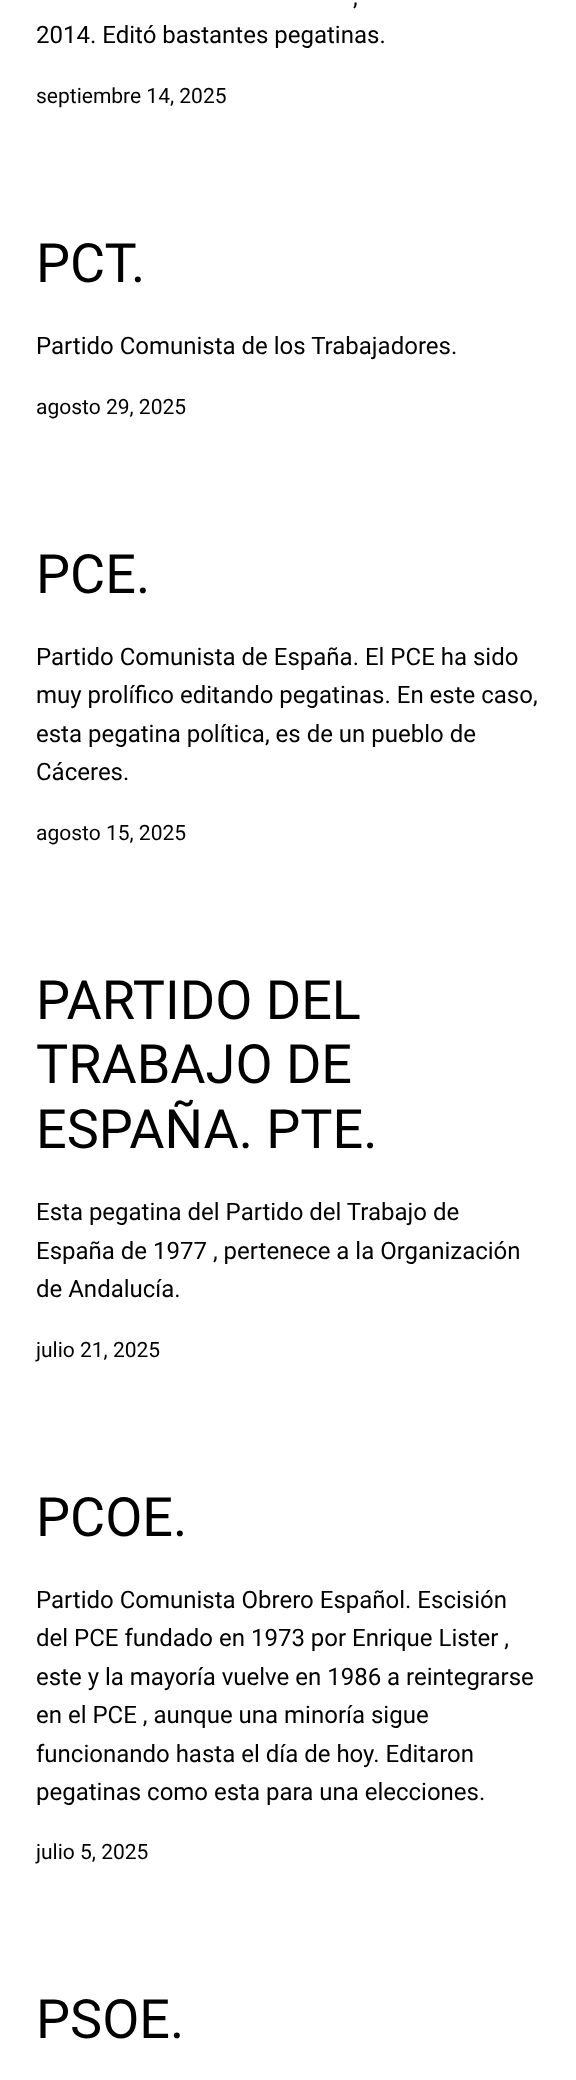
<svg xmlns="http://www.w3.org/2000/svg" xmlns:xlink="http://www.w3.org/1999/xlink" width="576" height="2080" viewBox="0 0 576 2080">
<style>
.cls-1{font:24px Roboto;fill:#000000}
.cls-2{font:21px Roboto;fill:#000000}
.cls-3{font:54px Roboto;fill:#000000}
</style>
<rect width="100%" height="100%" fill="#ffffff"/>
<text class="cls-1" x="353" y="5">,</text>
<text class="cls-1" x="36" y="43">2014. Editó bastantes pegatinas.</text>
<text class="cls-2" x="36" y="103">septiembre 14, 2025</text>
<text class="cls-3" x="36" y="282">PCT.</text>
<text class="cls-1" x="36" y="354">Partido Comunista de los Trabajadores.</text>
<text class="cls-2" x="36" y="414">agosto 29, 2025</text>
<text class="cls-3" x="36" y="593">PCE.</text>
<text class="cls-1"><tspan x="36" y="665">Partido Comunista de España. El PCE ha sido</tspan><tspan x="36" y="703">muy prolífico editando pegatinas. En este caso,</tspan><tspan x="36" y="742">esta pegatina política, es de un pueblo de</tspan><tspan x="36" y="780">Cáceres.</tspan></text>
<text class="cls-2" x="36" y="840">agosto 15, 2025</text>
<text class="cls-3"><tspan x="36" y="1019">PARTIDO DEL</tspan><tspan x="36" y="1083">TRABAJO DE</tspan><tspan x="36" y="1148">ESPAÑA. PTE.</tspan></text>
<text class="cls-1"><tspan x="36" y="1220">Esta pegatina del Partido del Trabajo de</tspan><tspan x="36" y="1259">España de 1977 , pertenece a la Organización</tspan><tspan x="36" y="1297">de Andalucía.</tspan></text>
<text class="cls-2" x="36" y="1357">julio 21, 2025</text>
<text class="cls-3" x="36" y="1536">PCOE.</text>
<text class="cls-1"><tspan x="36" y="1608">Partido Comunista Obrero Español. Escisión</tspan><tspan x="36" y="1646">del PCE fundado en 1973 por Enrique Lister ,</tspan><tspan x="36" y="1685">este y la mayoría vuelve en 1986 a reintegrarse</tspan><tspan x="36" y="1723">en el PCE , aunque una minoría sigue</tspan><tspan x="36" y="1762">funcionando hasta el día de hoy. Editaron</tspan><tspan x="36" y="1800">pegatinas como esta para una elecciones.</tspan></text>
<text class="cls-2" x="36" y="1859">julio 5, 2025</text>
<text class="cls-3" x="36" y="2038">PSOE.</text>
</svg>
